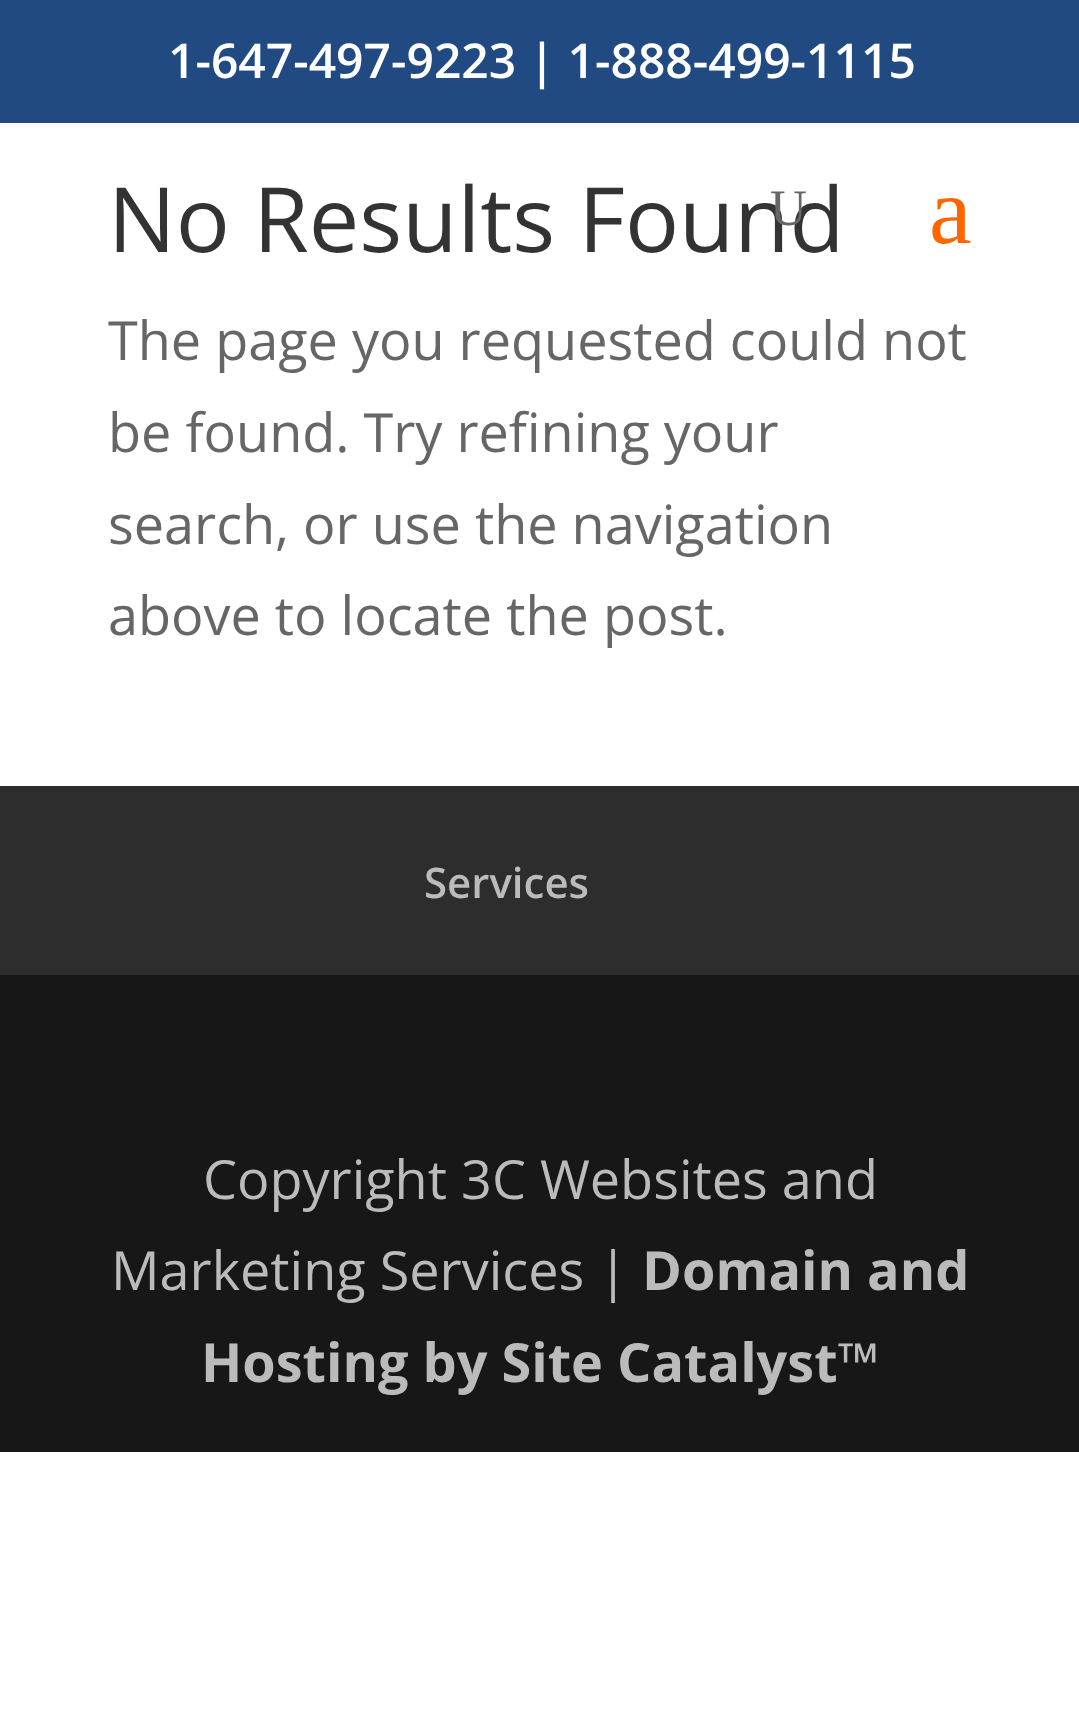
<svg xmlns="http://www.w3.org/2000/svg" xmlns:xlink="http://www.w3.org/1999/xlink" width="1079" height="1722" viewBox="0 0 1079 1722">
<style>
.cls-1{font:600 48px Open Sans;fill:#ffffff}
.cls-2{font:90px Open Sans;fill:#333333}
.cls-3{font:54px Open Sans;fill:#666666}
.cls-4{font:600 42px Open Sans;fill:#bbbbbb}
.cls-5{font:54px Open Sans;fill:#bbbbbb}
.cls-6{font:bold 54px Open Sans;fill:#bbbbbb}
.cls-7{font:51px Liberation Serif;fill:#666666}
.cls-8{font:96px Liberation Serif;fill:#ff6600}
</style>
<rect width="100%" height="100%" fill="#ffffff"/>
<rect fill="#214a82" x="0" y="0" width="1079" height="123"/>
<rect fill="#2d2d2d" x="0" y="786" width="1079" height="189"/>
<rect fill="#171717" x="0" y="975" width="1079" height="477"/>
<text class="cls-1" x="168" y="78">1-647-497-9223 | 1-888-499-1115</text>
<text class="cls-2" x="108" y="252">No Results Found</text>
<text class="cls-3"><tspan x="108" y="360">The page you requested could not</tspan><tspan x="108" y="452">be found. Try refining your</tspan><tspan x="108" y="544">search, or use the navigation</tspan><tspan x="108" y="635">above to locate the post.</tspan></text>
<text class="cls-4" x="424" y="898">Services</text>
<text class="cls-5" x="203" y="1199">Copyright 3C Websites and</text>
<text class="cls-5" x="111" y="1290">Marketing Services |</text>
<text class="cls-6" x="642" y="1290">Domain and</text>
<text class="cls-6" x="201" y="1382">Hosting by Site Catalyst™</text>
<text class="cls-7" x="770" y="225">U</text>
<text class="cls-8" x="929" y="243">a</text>
</svg>
